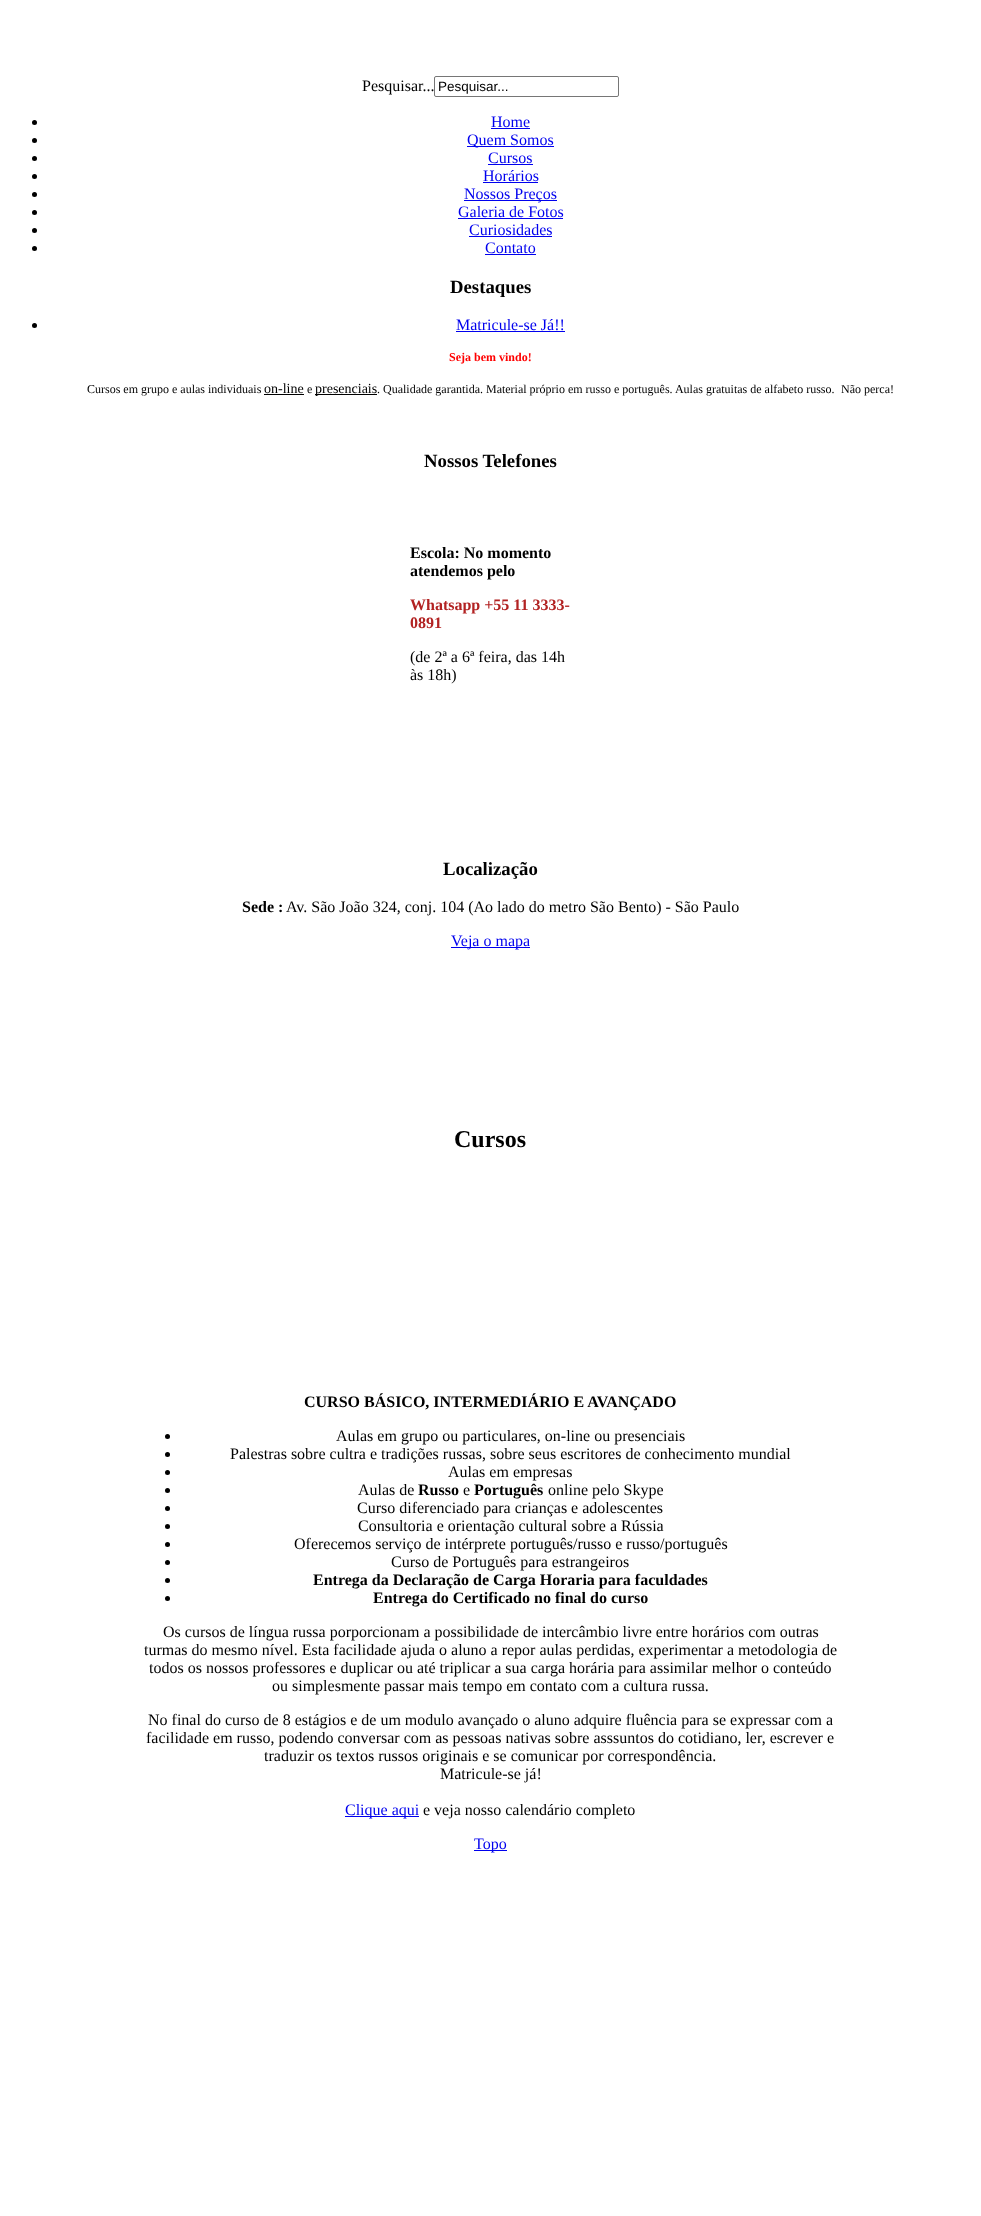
<svg xmlns="http://www.w3.org/2000/svg" xmlns:xlink="http://www.w3.org/1999/xlink" width="981" height="2216" viewBox="0 0 981 2216">
<style>
.cls-1{font:16px Liberation Serif;fill:#000000}
.cls-2{font:13.5px Liberation Sans;fill:#000000}
.cls-3{font:16px Liberation Serif;fill:#0000ee}
.cls-4{font:bold 18.75px Liberation Serif;fill:#000000}
.cls-5{font:bold 12px Liberation Serif;fill:#ff0000}
.cls-6{font:12px Liberation Serif;fill:#000000}
.cls-7{font:14px Liberation Serif;fill:#000000}
.cls-8{font:bold 16px Liberation Serif;fill:#000000}
.cls-9{font:bold 16px Liberation Serif;fill:#b22222}
.cls-10{font:bold 24px Liberation Serif;fill:#000000}
</style>
<rect width="100%" height="100%" fill="#ffffff"/>
<rect fill="none" stroke="#767676" x="434.5" y="76.5" width="184" height="20" rx="1.5"/>
<circle fill="#000000" cx="34.5" cy="122.5" r="2.5"/>
<rect fill="#0000ee" x="491" y="128" width="39" height="1"/>
<circle fill="#000000" cx="34.5" cy="140.5" r="2.5"/>
<rect fill="#0000ee" x="467" y="146" width="87" height="1"/>
<circle fill="#000000" cx="34.5" cy="158.5" r="2.5"/>
<rect fill="#0000ee" x="488" y="164" width="45" height="1"/>
<circle fill="#000000" cx="34.5" cy="176.5" r="2.5"/>
<rect fill="#0000ee" x="483" y="182" width="55" height="1"/>
<circle fill="#000000" cx="34.5" cy="194.5" r="2.5"/>
<rect fill="#0000ee" x="464" y="200" width="93" height="1"/>
<circle fill="#000000" cx="34.5" cy="212.5" r="2.5"/>
<rect fill="#0000ee" x="458" y="218" width="105" height="1"/>
<circle fill="#000000" cx="34.5" cy="230.5" r="2.5"/>
<rect fill="#0000ee" x="469" y="236" width="83" height="1"/>
<circle fill="#000000" cx="34.5" cy="248.5" r="2.5"/>
<rect fill="#0000ee" x="485" y="254" width="51" height="1"/>
<circle fill="#000000" cx="34.5" cy="325.5" r="2.5"/>
<rect fill="#0000ee" x="456" y="331" width="109" height="1"/>
<rect fill="#000000" x="264" y="394" width="40" height="1"/>
<rect fill="#000000" x="315" y="394" width="62" height="1"/>
<rect fill="#0000ee" x="451" y="947" width="79" height="1"/>
<circle fill="#000000" cx="167.5" cy="1436.5" r="2.5"/>
<circle fill="#000000" cx="167.5" cy="1454.5" r="2.5"/>
<circle fill="#000000" cx="167.5" cy="1472.5" r="2.5"/>
<circle fill="#000000" cx="167.5" cy="1490.5" r="2.5"/>
<circle fill="#000000" cx="167.5" cy="1508.5" r="2.5"/>
<circle fill="#000000" cx="167.5" cy="1526.5" r="2.5"/>
<circle fill="#000000" cx="167.5" cy="1544.5" r="2.5"/>
<circle fill="#000000" cx="167.5" cy="1562.5" r="2.5"/>
<circle fill="#000000" cx="167.5" cy="1580.5" r="2.5"/>
<circle fill="#000000" cx="167.5" cy="1598.5" r="2.5"/>
<rect fill="#0000ee" x="345" y="1816" width="74" height="1"/>
<rect fill="#0000ee" x="474" y="1850" width="33" height="1"/>
<text class="cls-1" x="362" y="91">Pesquisar...</text>
<text class="cls-2" x="438" y="91">Pesquisar...</text>
<text class="cls-3" x="491" y="127">Home</text>
<text class="cls-3" x="467" y="145">Quem Somos</text>
<text class="cls-3" x="488" y="163">Cursos</text>
<text class="cls-3" x="483" y="181">Horários</text>
<text class="cls-3" x="464" y="199">Nossos Preços</text>
<text class="cls-3" x="458" y="217">Galeria de Fotos</text>
<text class="cls-3" x="469" y="235">Curiosidades</text>
<text class="cls-3" x="485" y="253">Contato</text>
<text class="cls-4" x="450" y="293">Destaques</text>
<text class="cls-3" x="456" y="330">Matricule-se Já!!</text>
<text class="cls-5" x="449" y="361">Seja bem vindo!</text>
<text class="cls-6" x="87" y="393">Cursos em grupo e aulas individuais</text>
<text class="cls-7" x="264" y="393">on-line</text>
<text class="cls-6" x="307" y="393">e</text>
<text class="cls-7" x="315" y="393">presenciais</text>
<text class="cls-6" x="377" y="393">. Qualidade garantida. Material próprio em russo e português. Aulas gratuitas de alfabeto russo.</text>
<text class="cls-6" x="841" y="393">Não perca!</text>
<text class="cls-4" x="424" y="467">Nossos Telefones</text>
<text class="cls-8"><tspan x="410" y="558">Escola: No momento</tspan><tspan x="410" y="576">atendemos pelo</tspan></text>
<text class="cls-9"><tspan x="410" y="610">Whatsapp +55 11 3333-</tspan><tspan x="410" y="628">0891</tspan></text>
<text class="cls-1"><tspan x="410" y="662">(de 2ª a 6ª feira, das 14h</tspan><tspan x="410" y="680">às 18h)</tspan></text>
<text class="cls-4" x="443" y="875">Localização</text>
<text class="cls-8" x="242" y="912">Sede :</text>
<text class="cls-1" x="286" y="912">Av. São João 324, conj. 104 (Ao lado do metro São Bento) - São Paulo</text>
<text class="cls-3" x="451" y="946">Veja o mapa</text>
<text class="cls-10" x="454" y="1147">Cursos</text>
<text class="cls-8" x="304" y="1407">CURSO BÁSICO, INTERMEDIÁRIO E AVANÇADO</text>
<text class="cls-1" x="336" y="1441">Aulas em grupo ou particulares, on-line ou presenciais</text>
<text class="cls-1" x="230" y="1459">Palestras sobre cultra e tradições russas, sobre seus escritores de conhecimento mundial</text>
<text class="cls-1" x="448" y="1477">Aulas em empresas</text>
<text class="cls-1" x="358" y="1495">Aulas de</text>
<text class="cls-8" x="418" y="1495">Russo</text>
<text class="cls-1" x="463" y="1495">e</text>
<text class="cls-8" x="474" y="1495">Português</text>
<text class="cls-1" x="548" y="1495">online pelo Skype</text>
<text class="cls-1" x="357" y="1513">Curso diferenciado para crianças e adolescentes</text>
<text class="cls-1" x="358" y="1531">Consultoria e orientação cultural sobre a Rússia</text>
<text class="cls-1" x="294" y="1549">Oferecemos serviço de intérprete português/russo e russo/português</text>
<text class="cls-1" x="391" y="1567">Curso de Português para estrangeiros</text>
<text class="cls-8" x="313" y="1585">Entrega da Declaração de Carga Horaria para faculdades</text>
<text class="cls-8" x="373" y="1603">Entrega do Certificado no final do curso</text>
<text class="cls-1" x="163" y="1637">Os cursos de língua russa porporcionam a possibilidade de intercâmbio livre entre horários com outras</text>
<text class="cls-1" x="144" y="1655">turmas do mesmo nível. Esta facilidade ajuda o aluno a repor aulas perdidas, experimentar a metodologia de</text>
<text class="cls-1" x="149" y="1673">todos os nossos professores e duplicar ou até triplicar a sua carga horária para assimilar melhor o conteúdo</text>
<text class="cls-1" x="272" y="1691">ou simplesmente passar mais tempo em contato com a cultura russa.</text>
<text class="cls-1" x="148" y="1725">No final do curso de 8 estágios e de um modulo avançado o aluno adquire fluência para se expressar com a</text>
<text class="cls-1" x="146" y="1743">facilidade em russo, podendo conversar com as pessoas nativas sobre asssuntos do cotidiano, ler, escrever e</text>
<text class="cls-1" x="264" y="1761">traduzir os textos russos originais e se comunicar por correspondência.</text>
<text class="cls-1" x="440" y="1779">Matricule-se já!</text>
<text class="cls-3" x="345" y="1815">Clique aqui</text>
<text class="cls-1" x="423" y="1815">e veja nosso calendário completo</text>
<text class="cls-3" x="474" y="1849">Topo</text>
</svg>
